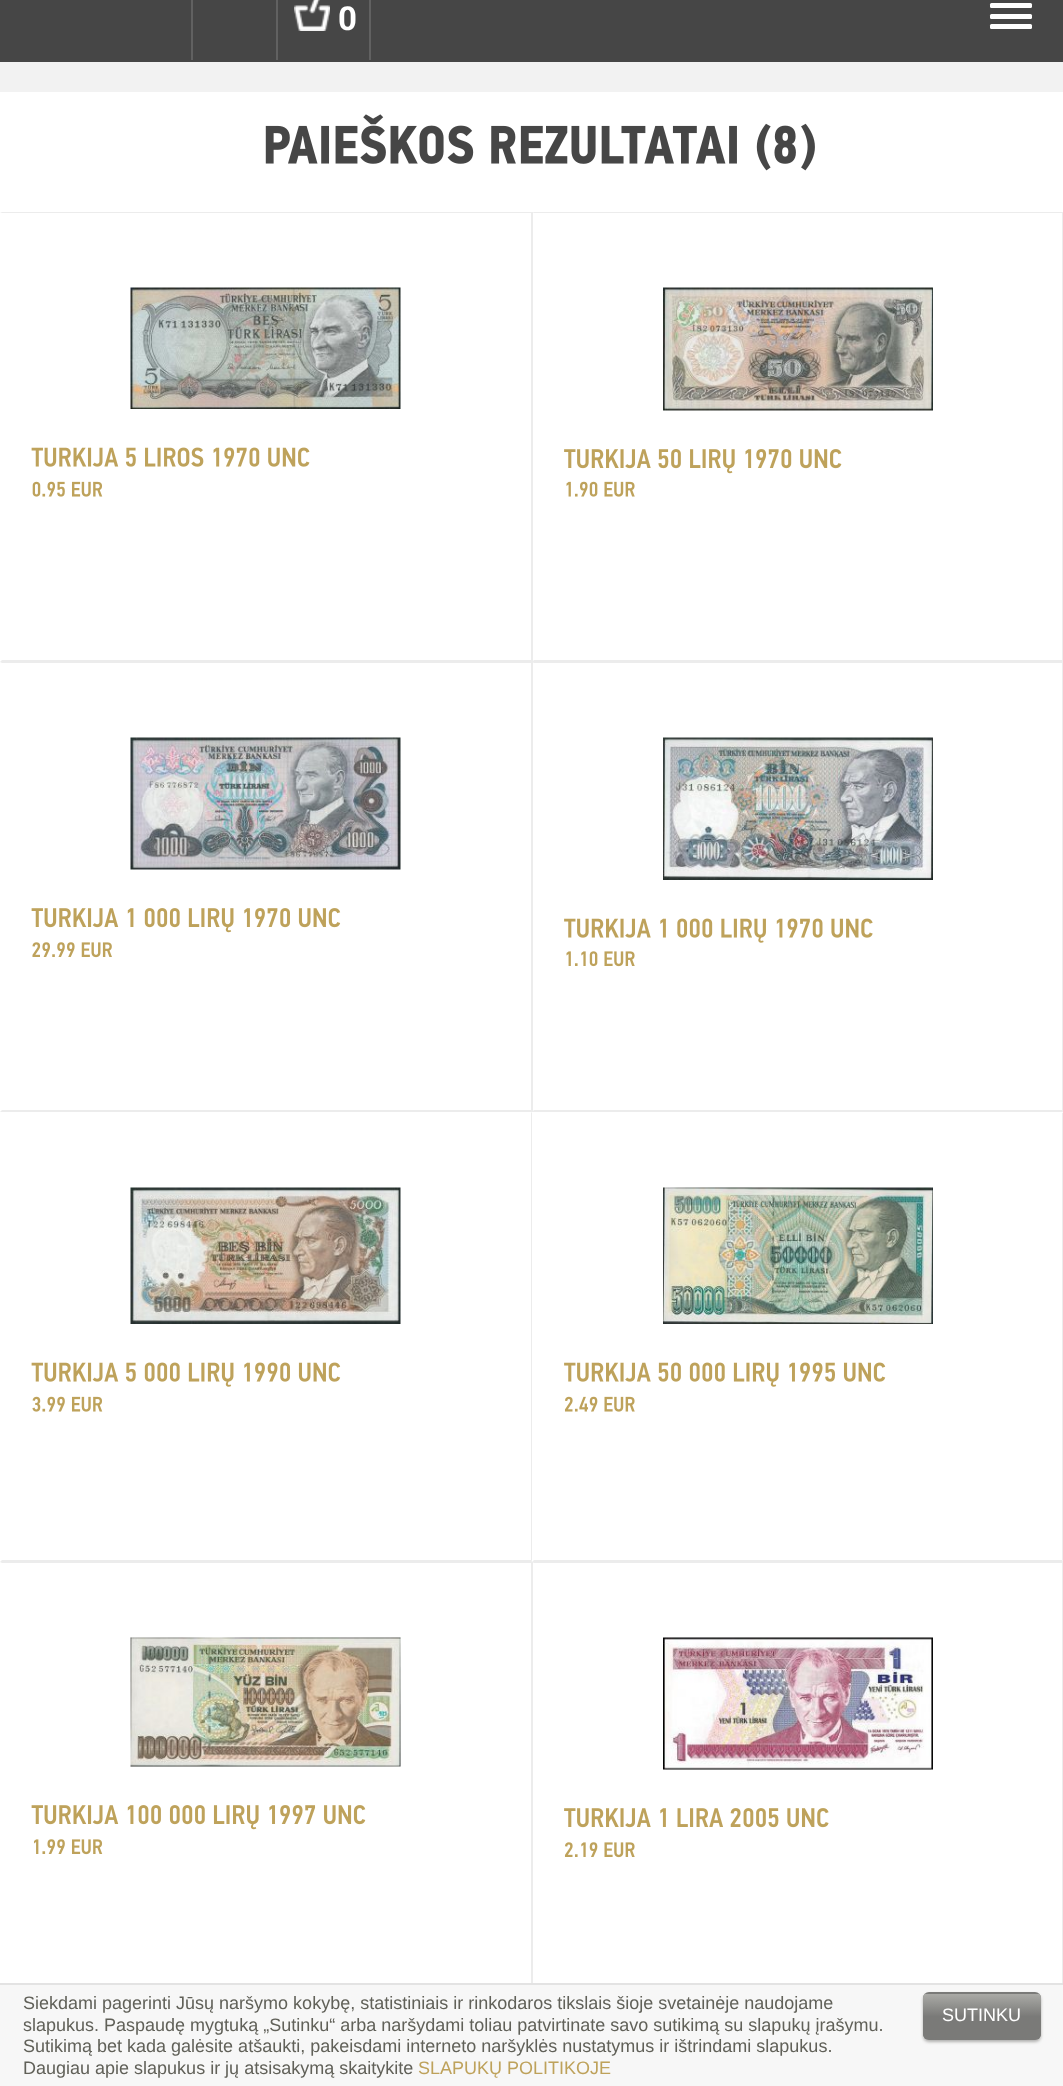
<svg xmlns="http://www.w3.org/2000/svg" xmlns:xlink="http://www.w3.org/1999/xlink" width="1063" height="2086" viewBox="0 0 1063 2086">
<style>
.cls-1{font:bold 33px Roboto;fill:#ffffff}
.cls-2{font:18px Liberation Sans;fill:#616159}
.cls-3{font:18px Liberation Sans;fill:#bea25b}
.cls-4{font:18px Liberation Sans;fill:#ffffff}
</style>
<defs>
<clipPath id="clip1"><rect x="923" y="1992" width="118" height="48" rx="6"/></clipPath>
<linearGradient id="g1" gradientUnits="userSpaceOnUse" x1="982" y1="1994" x2="982" y2="2039"><stop offset="0" stop-color="#aaaaa6"/><stop offset="0.5" stop-color="#7a7a78"/></linearGradient>
</defs>
<rect width="100%" height="100%" fill="#f2f2f2"/>
<rect fill="#464646" x="0" y="0" width="1063" height="62"/>
<rect fill="#616161" x="191" y="0" width="2" height="60"/>
<rect fill="#616161" x="276" y="0" width="2" height="60"/>
<rect fill="#616161" x="369" y="0" width="2" height="60"/>
<image xlink:href="image0.png" x="294" y="0" width="36" height="31"/>
<rect fill="#ffffff" x="990" y="3" width="42" height="5" rx="1.5"/>
<rect fill="#ffffff" x="990" y="14" width="42" height="5" rx="1.5"/>
<rect fill="#ffffff" x="990" y="24" width="42" height="5" rx="1.5"/>
<rect fill="#ffffff" x="0" y="92" width="1063" height="1891"/>
<image xlink:href="image1.png" x="265" y="114" width="550" height="57"/>
<path fill="#ececec" d="M0 212H532L531 213H2Z"/>
<rect fill="#ececec" x="531" y="212" width="2" height="450"/>
<path fill="#ececec" d="M532 662H0L2 660H531Z"/>
<image xlink:href="image2.png" x="130" y="287" width="271" height="122"/>
<image xlink:href="image3.png" x="31" y="447" width="279" height="20"/>
<image xlink:href="image4.png" x="32" y="481" width="71" height="16"/>
<path fill="#ececec" d="M532 212H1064L1062 213H534Z"/>
<rect fill="#ececec" x="1062" y="212" width="1" height="450"/>
<path fill="#ececec" d="M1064 662H532L534 660H1062Z"/>
<image xlink:href="image5.png" x="663" y="287" width="270" height="124"/>
<image xlink:href="image6.png" x="564" y="449" width="278" height="25"/>
<image xlink:href="image7.png" x="566" y="481" width="69" height="16"/>
<path fill="#ececec" d="M0 662H532L531 663H2Z"/>
<rect fill="#ececec" x="531" y="662" width="2" height="450"/>
<path fill="#ececec" d="M532 1112H0L2 1110H531Z"/>
<image xlink:href="image8.png" x="130" y="737" width="271" height="133"/>
<image xlink:href="image9.png" x="31" y="908" width="310" height="25"/>
<image xlink:href="image10.png" x="32" y="942" width="80" height="16"/>
<path fill="#ececec" d="M532 662H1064L1062 663H534Z"/>
<rect fill="#ececec" x="1062" y="662" width="1" height="450"/>
<path fill="#ececec" d="M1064 1112H532L534 1110H1062Z"/>
<image xlink:href="image11.png" x="663" y="737" width="270" height="143"/>
<image xlink:href="image12.png" x="564" y="918" width="309" height="25"/>
<image xlink:href="image13.png" x="566" y="951" width="69" height="16"/>
<path fill="#ececec" d="M532 1112V1562L531 1560V1113Z"/>
<path fill="#ececec" d="M532 1562H0L2 1560H531Z"/>
<image xlink:href="image14.png" x="130" y="1187" width="271" height="137"/>
<image xlink:href="image15.png" x="31" y="1362" width="310" height="25"/>
<image xlink:href="image16.png" x="32" y="1396" width="71" height="16"/>
<path fill="#ececec" d="M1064 1112V1562L1062 1560V1113Z"/>
<path fill="#ececec" d="M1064 1562H532L534 1560H1062Z"/>
<image xlink:href="image17.png" x="663" y="1187" width="270" height="137"/>
<image xlink:href="image18.png" x="564" y="1362" width="322" height="25"/>
<image xlink:href="image19.png" x="564" y="1396" width="71" height="16"/>
<path fill="#ececec" d="M0 1562H532L531 1563H2Z"/>
<rect fill="#ececec" x="531" y="1562" width="2" height="421"/>
<image xlink:href="image20.png" x="130" y="1637" width="271" height="130"/>
<image xlink:href="image21.png" x="31" y="1805" width="335" height="25"/>
<image xlink:href="image22.png" x="34" y="1839" width="69" height="16"/>
<path fill="#ececec" d="M532 1562H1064L1062 1563H534Z"/>
<rect fill="#ececec" x="1062" y="1562" width="1" height="421"/>
<image xlink:href="image23.png" x="663" y="1637" width="270" height="133"/>
<image xlink:href="image24.png" x="564" y="1808" width="265" height="20"/>
<image xlink:href="image25.png" x="564" y="1842" width="71" height="16"/>
<rect fill="#f7f7f7" x="0" y="1985" width="1063" height="101"/>
<rect fill="#e3e3e3" x="0" y="1983" width="1063" height="2"/>
<rect fill="#12100b" fill-opacity="0.3" filter="blur(1.5px)" x="923" y="1994" width="118" height="48" rx="6"/>
<rect fill="#7a7a78" x="923" y="1992" width="118" height="48" rx="6"/>
<g clip-path="url(#clip1)">
<rect fill="url(#g1)" x="923" y="1994" width="118" height="45"/>
</g>
<text class="cls-1" x="338" y="30">0</text>
<text class="cls-2"><tspan x="23" y="2009">Siekdami pagerinti Jūsų naršymo kokybę, statistiniais ir rinkodaros tikslais šioje svetainėje naudojame</tspan><tspan x="23" y="2031">slapukus. Paspaudę mygtuką „Sutinku“ arba naršydami toliau patvirtinate savo sutikimą su slapukų įrašymu.</tspan><tspan x="23" y="2052">Sutikimą bet kada galėsite atšaukti, pakeisdami interneto naršyklės nustatymus ir ištrindami slapukus.</tspan><tspan x="23" y="2074">Daugiau apie slapukus ir jų atsisakymą skaitykite</tspan></text>
<text class="cls-3" x="418" y="2074">SLAPUKŲ POLITIKOJE</text>
<text class="cls-4" x="942" y="2021">SUTINKU</text>
</svg>
